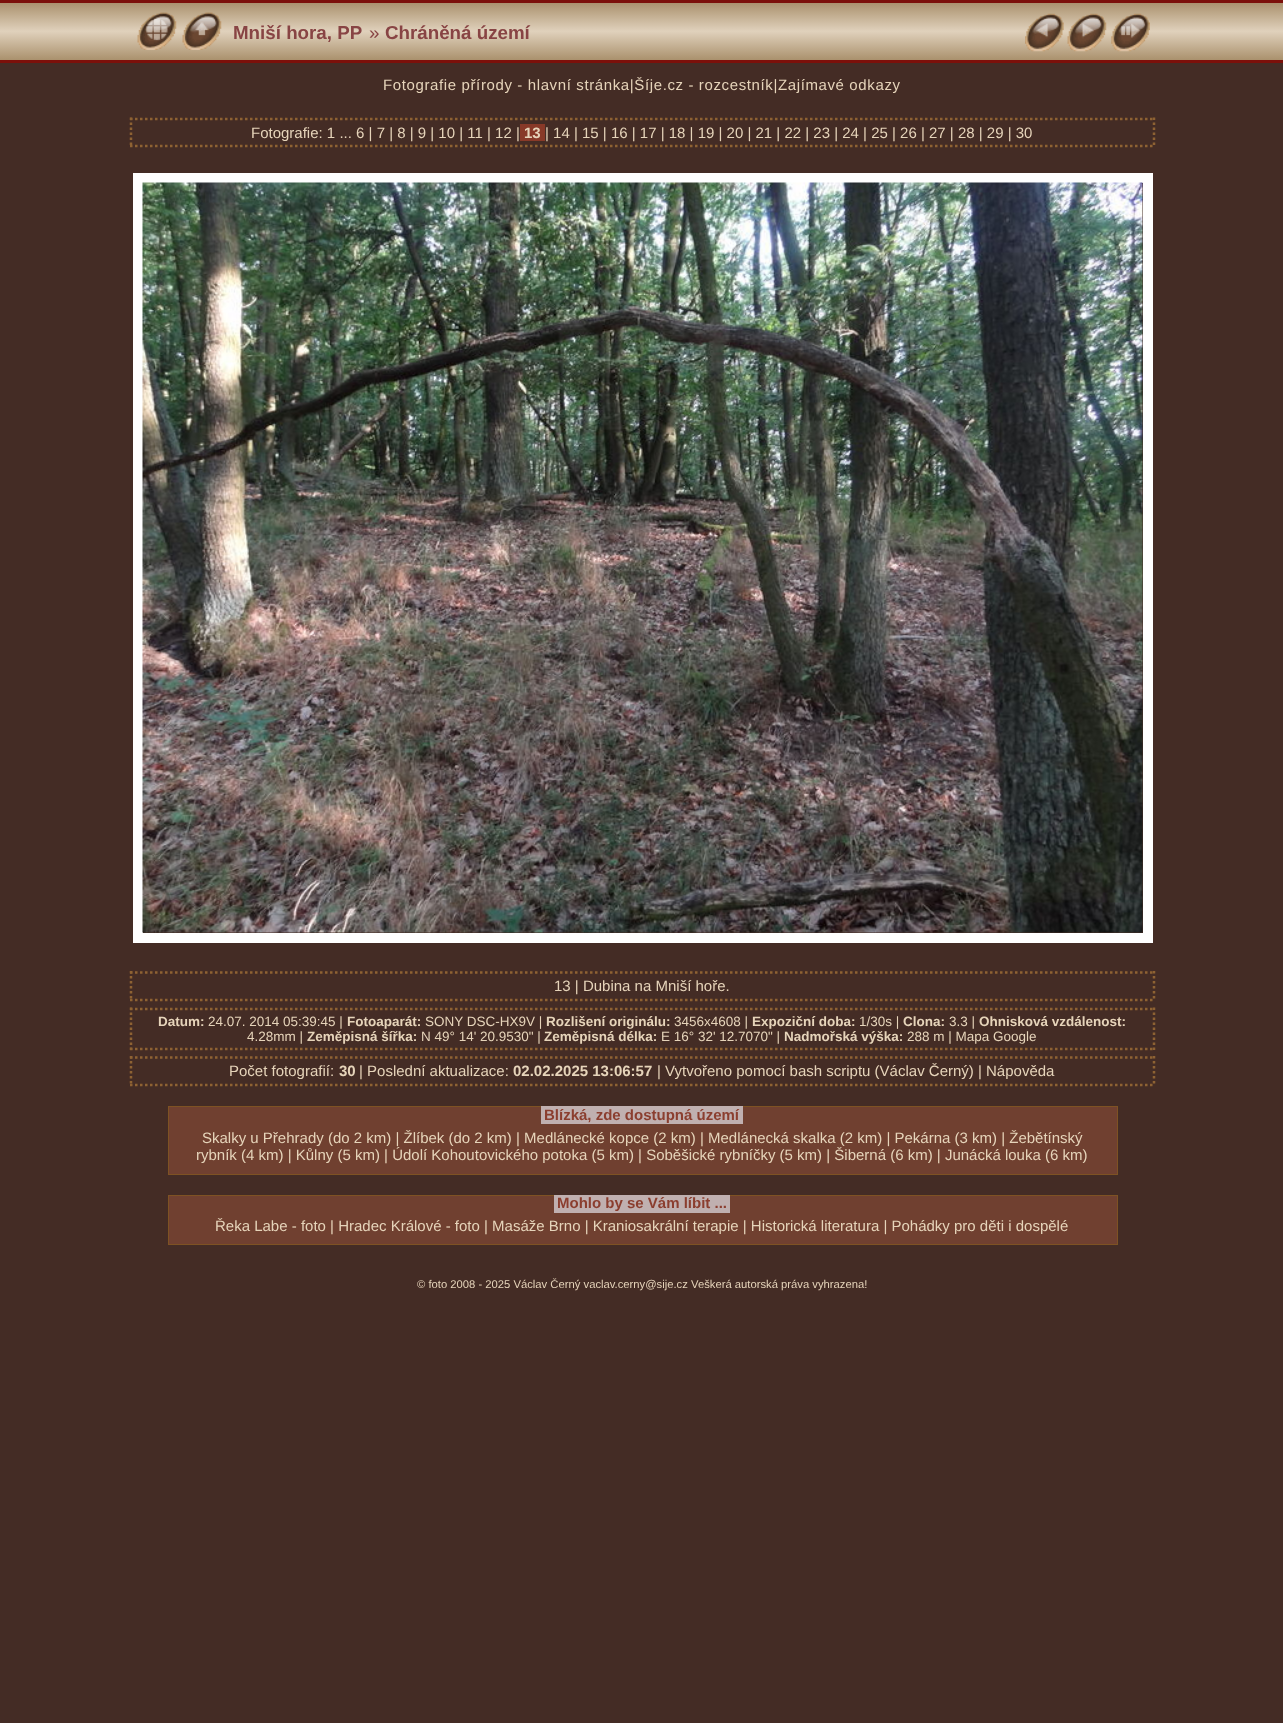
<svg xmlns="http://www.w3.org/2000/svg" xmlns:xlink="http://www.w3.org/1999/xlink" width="1283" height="1723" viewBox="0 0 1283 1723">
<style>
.cls-1{font:bold 18.75px Liberation Sans;fill:#884444}
.cls-2{font:18.75px Liberation Sans;fill:#884444}
.cls-3{font:15px Liberation Sans;letter-spacing:0.62px;fill:#e6d4ba}
.cls-4{font:15px Liberation Sans;fill:#e6d4ba}
.cls-5{font:bold 15px Liberation Sans;fill:#e6d4ba}
.cls-6{font:bold 13.5px Liberation Sans;fill:#e6d4ba}
.cls-7{font:13.5px Liberation Sans;fill:#e6d4ba}
.cls-8{font:bold 15px Liberation Sans;fill:#8b3e2f}
.cls-9{font:11.25px Liberation Sans;fill:#e6d4ba}
</style>
<defs>
<linearGradient id="g1" gradientUnits="userSpaceOnUse" x1="643" y1="2.5" x2="643" y2="60"><stop offset="0" stop-color="#aa916d"/><stop offset="0.5" stop-color="#e0d1bc"/><stop offset="1" stop-color="#aa916d"/></linearGradient>
</defs>
<rect width="100%" height="100%" fill="#442c25"/>
<rect fill="url(#g1)" x="0" y="3" width="1283" height="57"/>
<rect fill="#7c100a" x="0" y="0" width="1283" height="3"/>
<rect fill="#7c100a" x="0" y="60" width="1283" height="3"/>
<image xlink:href="image0.png" x="137" y="12" width="40" height="38"/>
<image xlink:href="image1.png" x="182" y="12" width="40" height="38"/>
<image xlink:href="image2.png" x="1025" y="13" width="39" height="39"/>
<image xlink:href="image3.png" x="1067" y="13" width="40" height="39"/>
<image xlink:href="image4.png" x="1111" y="13" width="39" height="39"/>
<path fill="none" stroke="#8e6233" stroke-width="2.5" stroke-dasharray="2.5 2.5" d="M130 119H1155"/>
<path fill="none" stroke="#8e6233" stroke-width="2.5" stroke-dasharray="2.5 2.5" d="M1154 117.5V147.5"/>
<path fill="none" stroke="#8e6233" stroke-width="2.5" stroke-dasharray="2.5 2.5" d="M130 146H1155"/>
<path fill="none" stroke="#8e6233" stroke-width="2.5" stroke-dasharray="2.5 2.5" d="M131 117.5V147.5"/>
<rect fill="#883928" x="520" y="124" width="25" height="17"/>
<rect fill="none" stroke="#ffffff" stroke-width="10" x="138" y="178" width="1010" height="760"/>
<image xlink:href="image5.png" x="142" y="182" width="1001" height="751"/>
<path fill="none" stroke="#8e6233" stroke-width="2.5" stroke-dasharray="2.5 2.5" d="M130 972.5H1155"/>
<path fill="none" stroke="#8e6233" stroke-width="2.5" stroke-dasharray="2.5 2.5" d="M1154 971V1001"/>
<path fill="none" stroke="#8e6233" stroke-width="2.5" stroke-dasharray="2.5 2.5" d="M130 1000H1155"/>
<path fill="none" stroke="#8e6233" stroke-width="2.5" stroke-dasharray="2.5 2.5" d="M131 971V1001"/>
<path fill="none" stroke="#8e6233" stroke-width="2.5" stroke-dasharray="2.5 2.5" d="M130 1009H1155"/>
<path fill="none" stroke="#8e6233" stroke-width="2.5" stroke-dasharray="2.5 2.5" d="M1154 1007.5V1050"/>
<path fill="none" stroke="#8e6233" stroke-width="2.5" stroke-dasharray="2.5 2.5" d="M130 1049H1155"/>
<path fill="none" stroke="#8e6233" stroke-width="2.5" stroke-dasharray="2.5 2.5" d="M131 1007.5V1050"/>
<path fill="none" stroke="#8e6233" stroke-width="2.5" stroke-dasharray="2.5 2.5" d="M130 1057.5H1155"/>
<path fill="none" stroke="#8e6233" stroke-width="2.5" stroke-dasharray="2.5 2.5" d="M1154 1056V1086"/>
<path fill="none" stroke="#8e6233" stroke-width="2.5" stroke-dasharray="2.5 2.5" d="M130 1085H1155"/>
<path fill="none" stroke="#8e6233" stroke-width="2.5" stroke-dasharray="2.5 2.5" d="M131 1056V1086"/>
<rect fill="#704030" stroke="#7e5223" x="168.5" y="1106.5" width="949" height="68"/>
<rect fill="#c0b0b0" x="541" y="1106" width="202" height="18"/>
<rect fill="#704030" stroke="#7e5223" x="168.5" y="1195.5" width="949" height="49"/>
<rect fill="#c0b0b0" x="554" y="1195" width="176" height="18"/>
<text class="cls-1" x="233" y="39">Mniší hora, PP</text>
<text class="cls-2" x="369" y="39">»</text>
<text class="cls-1" x="385" y="39">Chráněná území</text>
<text class="cls-3" x="383" y="90">Fotografie přírody - hlavní stránka|Šíje.cz - rozcestník|Zajímavé odkazy</text>
<text class="cls-4" x="251" y="138">Fotografie: 1 ... 6 | 7 | 8 | 9 | 10 | 11 | 12 |</text>
<text class="cls-5" x="524" y="138">13</text>
<text class="cls-4" x="545" y="138">| 14 | 15 | 16 | 17 | 18 | 19 | 20 | 21 | 22 | 23 | 24 | 25 | 26 | 27 | 28 | 29 | 30</text>
<text class="cls-4" x="554" y="991">13 | Dubina na Mniší hoře.</text>
<text class="cls-6" x="158" y="1026">Datum:</text>
<text class="cls-7" x="208" y="1026">24.07. 2014 05:39:45 |</text>
<text class="cls-6" x="347" y="1026">Fotoaparát:</text>
<text class="cls-7" x="425" y="1026">SONY DSC-HX9V |</text>
<text class="cls-6" x="546" y="1026">Rozlišení originálu:</text>
<text class="cls-7" x="674" y="1026">3456x4608 |</text>
<text class="cls-6" x="752" y="1026">Expoziční doba:</text>
<text class="cls-7" x="859" y="1026">1/30s |</text>
<text class="cls-6" x="903" y="1026">Clona:</text>
<text class="cls-7" x="949" y="1026">3.3 |</text>
<text class="cls-6" x="979" y="1026">Ohnisková vzdálenost:</text>
<text class="cls-7" x="247" y="1041">4.28mm |</text>
<text class="cls-6" x="307" y="1041">Zeměpisná šířka:</text>
<text class="cls-7" x="421" y="1041">N 49° 14' 20.9530" |</text>
<text class="cls-6" x="544" y="1041">Zeměpisná délka:</text>
<text class="cls-7" x="661" y="1041">E 16° 32' 12.7070" |</text>
<text class="cls-6" x="784" y="1041">Nadmořská výška:</text>
<text class="cls-7" x="907" y="1041">288 m | Mapa Google</text>
<text class="cls-4" x="229" y="1076">Počet fotografií:</text>
<text class="cls-5" x="339" y="1076">30</text>
<text class="cls-4" x="359" y="1076">| Poslední aktualizace:</text>
<text class="cls-5" x="513" y="1076">02.02.2025 13:06:57</text>
<text class="cls-4" x="657" y="1076">| Vytvořeno pomocí bash scriptu (Václav Černý) | Nápověda</text>
<text class="cls-8" x="544" y="1120">Blízká, zde dostupná území</text>
<text class="cls-4" x="202" y="1143">Skalky u Přehrady (do 2 km) | Žlíbek (do 2 km) | Medlánecké kopce (2 km) | Medlánecká skalka (2 km) | Pekárna (3 km) | Žebětínský</text>
<text class="cls-4" x="196" y="1160">rybník (4 km) | Kůlny (5 km) | Údolí Kohoutovického potoka (5 km) | Soběšické rybníčky (5 km) | Šiberná (6 km) | Junácká louka (6 km)</text>
<text class="cls-8" x="557" y="1208">Mohlo by se Vám líbit ...</text>
<text class="cls-4" x="215" y="1231">Řeka Labe - foto | Hradec Králové - foto | Masáže Brno | Kraniosakrální terapie | Historická literatura | Pohádky pro děti i dospělé</text>
<text class="cls-9" x="417" y="1288">© foto 2008 - 2025 Václav Černý vaclav.cerny@sije.cz Veškerá autorská práva vyhrazena!</text>
</svg>
